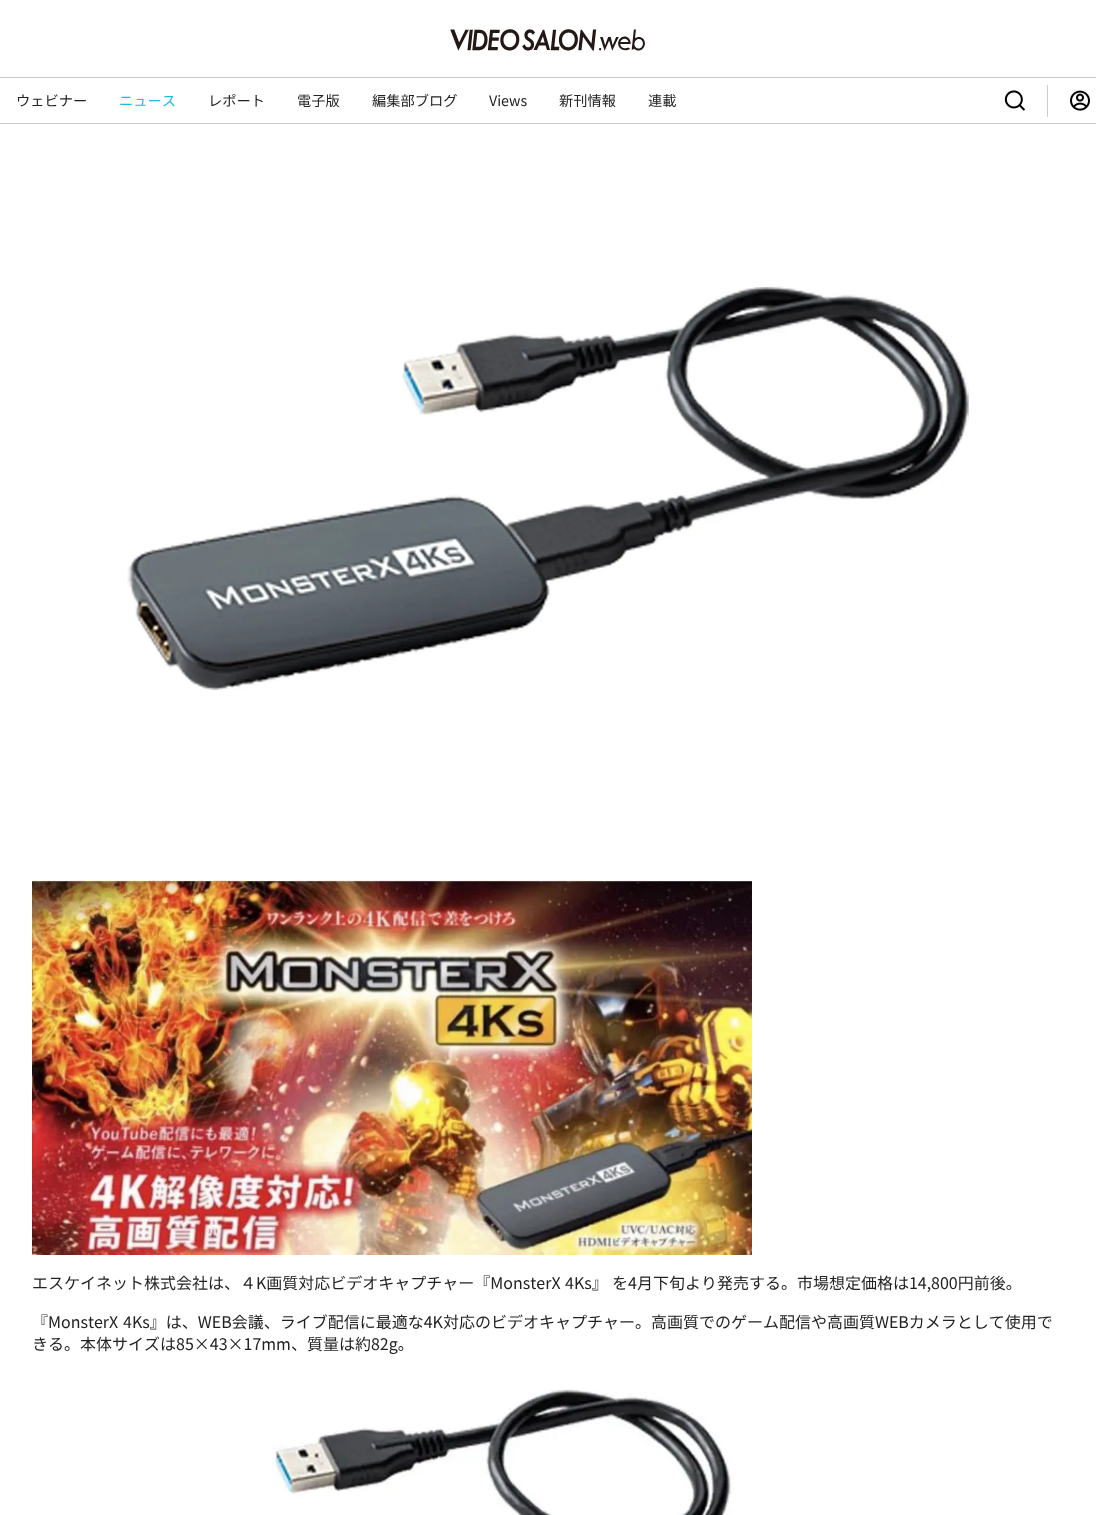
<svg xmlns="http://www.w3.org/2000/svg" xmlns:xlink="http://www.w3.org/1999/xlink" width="1096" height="1515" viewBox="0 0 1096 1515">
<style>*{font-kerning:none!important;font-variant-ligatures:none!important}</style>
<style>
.cls-1{font:14.25px Noto Sans JP;fill:#222222}
.cls-2{font:14.25px Noto Sans JP;fill:#1eb8e9}
.cls-3{font:16px Noto Sans JP;fill:#222222}
</style>
<rect width="100%" height="100%" fill="#ffffff"/>
<rect fill="#cccccc" x="0" y="123" width="1096" height="1"/>
<rect fill="#cccccc" x="0" y="77" width="1096" height="1"/>
<image xlink:href="image0.png" x="450" y="29" width="195" height="22"/>
<image xlink:href="image1.png" x="1004" y="90" width="22" height="21"/>
<rect fill="#cccccc" x="1047" y="85" width="1" height="32"/>
<image xlink:href="image2.png" x="1070" y="90" width="20" height="21"/>
<image xlink:href="image3.png" x="127" y="286" width="842" height="405"/>
<image xlink:href="image4.png" x="32" y="880" width="720" height="375"/>
<image xlink:href="image5.png" x="271" y="1389" width="463" height="126"/>
<text class="cls-1" x="16" y="106">ウェビナー</text>
<text class="cls-2" x="119" y="106">ニュース</text>
<text class="cls-1" x="208" y="106">レポート</text>
<text class="cls-1" x="297" y="106">電子版</text>
<text class="cls-1" x="372" y="106">編集部ブログ</text>
<text class="cls-1" x="489" y="106">Views</text>
<text class="cls-1" x="559" y="106">新刊情報</text>
<text class="cls-1" x="648" y="106">連載</text>
<text class="cls-3" x="32" y="1289">エスケイネット株式会社は、４K画質対応ビデオキャプチャー『MonsterX</text>
<text class="cls-3" x="565" y="1289">4Ks』</text>
<text class="cls-3" x="612" y="1289">を4月下旬より発売する。市場想定価格は14,800円前後。</text>
<text class="cls-3" x="32" y="1328">『MonsterX</text>
<text class="cls-3" x="123" y="1328">4Ks』は、WEB会議、ライブ配信に最適な4K対応のビデオキャプチャー。高画質でのゲーム配信や高画質WEBカメラとして使用で</text>
<text class="cls-3" x="32" y="1350">きる。本体サイズは85×43×17mm、質量は約82g。</text>
</svg>
